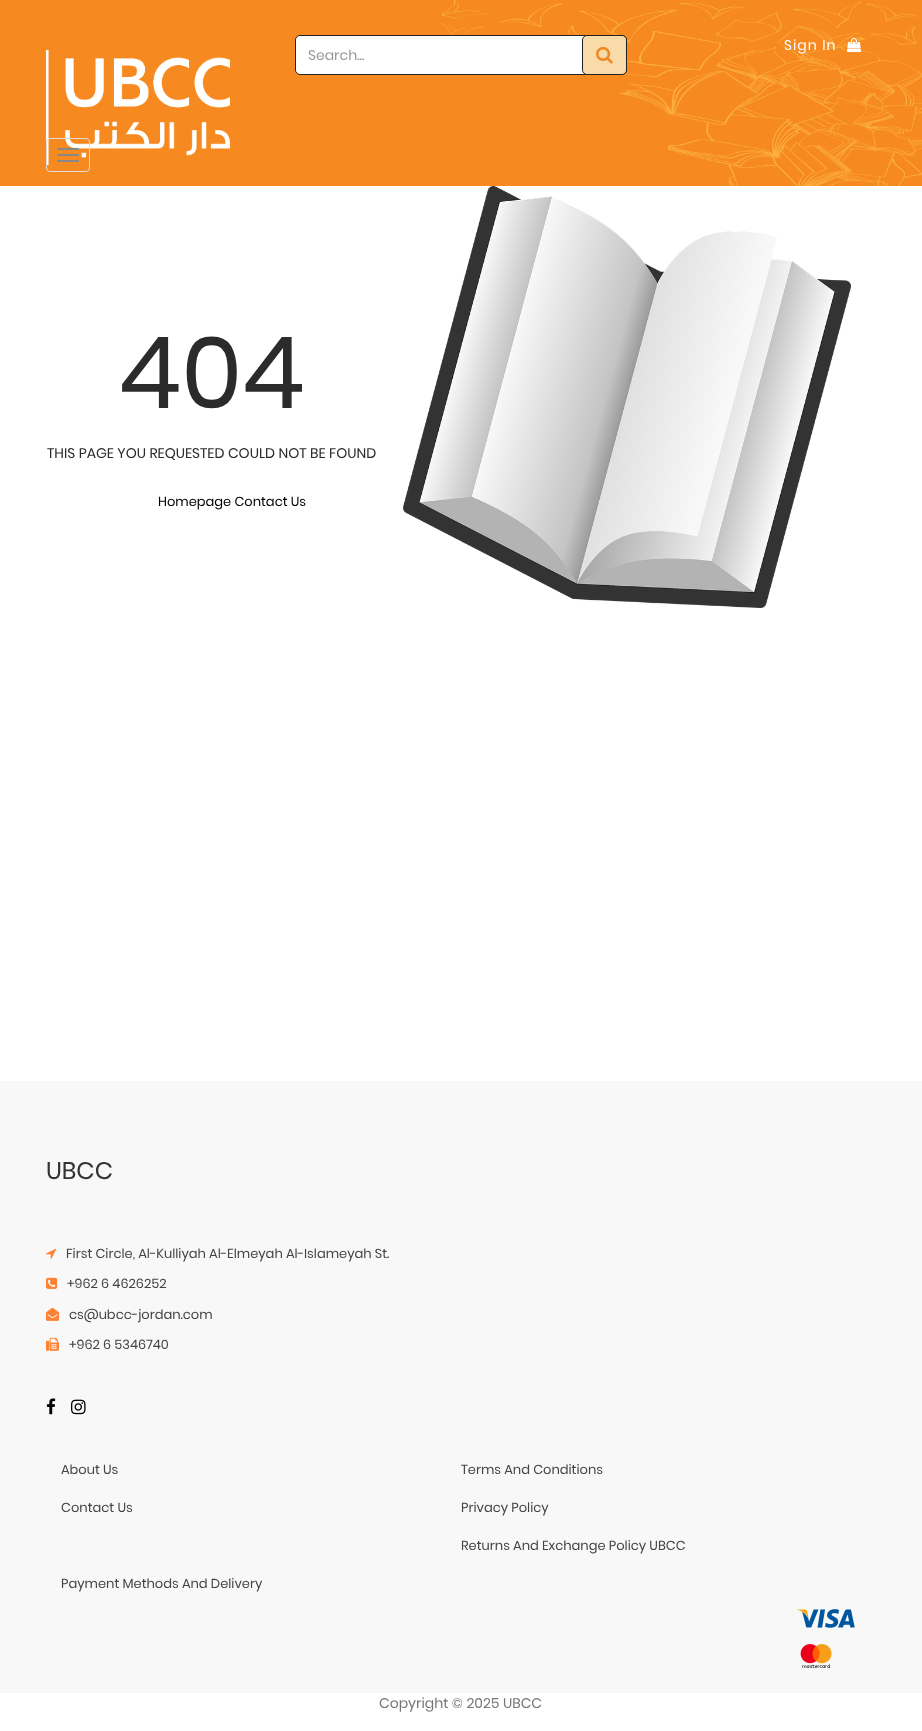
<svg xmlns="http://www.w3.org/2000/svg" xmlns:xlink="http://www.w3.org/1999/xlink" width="922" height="1731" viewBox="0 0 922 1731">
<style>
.cls-1{font:14px Poppins;fill:#999999}
.cls-2{font:14px Poppins;letter-spacing:1px;fill:#ffffff}
.cls-3{font:100px Poppins;fill:#2b2b2b}
.cls-4{font:14px Poppins;fill:#2b2b2b}
.cls-5{font:13px Poppins;fill:#000000}
.cls-6{font:24px Poppins;fill:#333333}
.cls-7{font:13px Poppins;fill:#444444}
.cls-8{font:14px Poppins;fill:#777777}
</style>
<rect width="100%" height="100%" fill="#ffffff"/>
<image xlink:href="image0.png" x="0" y="0" width="922" height="186"/>
<image xlink:href="image1.png" x="46" y="50" width="184" height="115"/>
<rect fill="#ffffff" stroke="#222222" x="295.5" y="35.5" width="331" height="39" rx="4.5"/>
<rect fill="#f9dba9" stroke="#222222" x="582.5" y="35.5" width="44" height="39" rx="4.5"/>
<image xlink:href="image2.png" x="596" y="46" width="17" height="18"/>
<image xlink:href="image3.png" x="847" y="38" width="14" height="14"/>
<rect fill="none" stroke="#dddddd" x="46.5" y="138.5" width="43" height="33" rx="3.5"/>
<rect fill="#888888" x="57" y="148" width="22" height="2" rx="1"/>
<rect fill="#888888" x="57" y="154" width="22" height="2" rx="1"/>
<rect fill="#888888" x="57" y="160" width="22" height="2" rx="1"/>
<image xlink:href="image4.png" x="403" y="186" width="448" height="422"/>
<rect fill="#f8f8f8" x="0" y="1081" width="922" height="612"/>
<image xlink:href="image5.png" x="46" y="1248" width="11" height="11"/>
<image xlink:href="image6.png" x="46" y="1277" width="12" height="12"/>
<image xlink:href="image7.png" x="46" y="1307" width="13" height="14"/>
<image xlink:href="image8.png" x="46" y="1337" width="13" height="14"/>
<image xlink:href="image9.png" x="46" y="1398" width="10" height="17"/>
<image xlink:href="image10.png" x="71" y="1399" width="15" height="16"/>
<image xlink:href="image11.png" x="797" y="1609" width="58" height="19"/>
<image xlink:href="image12.png" x="800" y="1644" width="32" height="24"/>
<text class="cls-1" x="308" y="60">Search...</text>
<text class="cls-2" x="784" y="50">Sign In</text>
<text class="cls-3" x="119" y="408">404</text>
<text class="cls-4" x="47" y="458">THIS PAGE YOU REQUESTED COULD NOT BE FOUND</text>
<text class="cls-5" x="158" y="506">Homepage Contact Us</text>
<text class="cls-6" x="46" y="1179">UBCC</text>
<text class="cls-7" x="66" y="1258">First Circle, Al-Kulliyah Al-Elmeyah Al-Islameyah St.</text>
<text class="cls-7" x="67" y="1288">+962 6 4626252</text>
<text class="cls-7" x="69" y="1319">cs@ubcc-jordan.com</text>
<text class="cls-7" x="69" y="1349">+962 6 5346740</text>
<text class="cls-7" x="61" y="1474">About Us</text>
<text class="cls-7" x="61" y="1512">Contact Us</text>
<text class="cls-7" x="461" y="1474">Terms And Conditions</text>
<text class="cls-7" x="461" y="1512">Privacy Policy</text>
<text class="cls-7" x="461" y="1550">Returns And Exchange Policy UBCC</text>
<text class="cls-7" x="61" y="1588">Payment Methods And Delivery</text>
<text class="cls-8" x="379" y="1708">Copyright © 2025 UBCC</text>
</svg>
